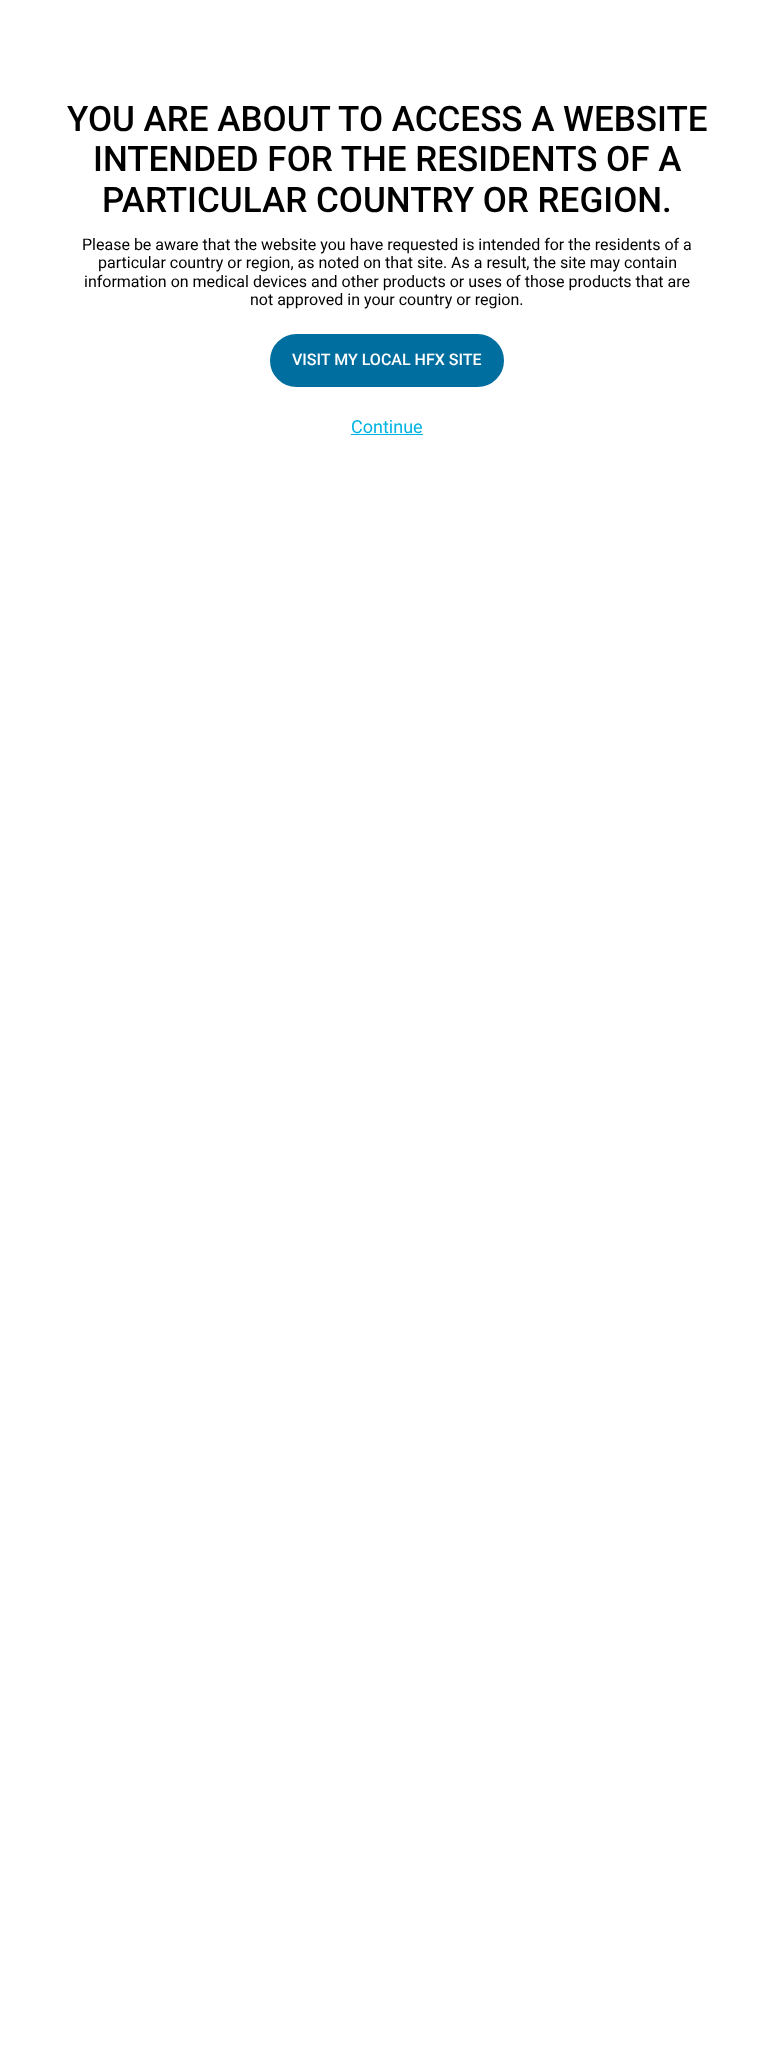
<svg xmlns="http://www.w3.org/2000/svg" xmlns:xlink="http://www.w3.org/1999/xlink" width="774" height="2055" viewBox="0 0 774 2055">
<style>
.cls-1{font:500 35px Roboto;fill:#000000}
.cls-2{font:16px Roboto;fill:#000000}
.cls-3{font:500 16px Roboto;fill:#ffffff}
.cls-4{font:18px Roboto;fill:#00b3e2}
</style>
<rect width="100%" height="100%" fill="#ffffff"/>
<rect fill="#006e9f" stroke="#006e9f" stroke-width="2" x="271" y="335" width="232" height="51" rx="25.5"/>
<rect fill="#00b3e2" x="351" y="434" width="72" height="1"/>
<text class="cls-1" x="67" y="131">YOU ARE ABOUT TO ACCESS A WEBSITE</text>
<text class="cls-1" x="93" y="171">INTENDED FOR THE RESIDENTS OF A</text>
<text class="cls-1" x="102" y="212">PARTICULAR COUNTRY OR REGION.</text>
<text class="cls-2" x="82" y="250">Please be aware that the website you have requested is intended for the residents of a</text>
<text class="cls-2" x="98" y="268">particular country or region, as noted on that site. As a result, the site may contain</text>
<text class="cls-2" x="84" y="287">information on medical devices and other products or uses of those products that are</text>
<text class="cls-2" x="250" y="305">not approved in your country or region.</text>
<text class="cls-3" x="292" y="365">VISIT MY LOCAL HFX SITE</text>
<text class="cls-4" x="351" y="433">Continue</text>
</svg>
